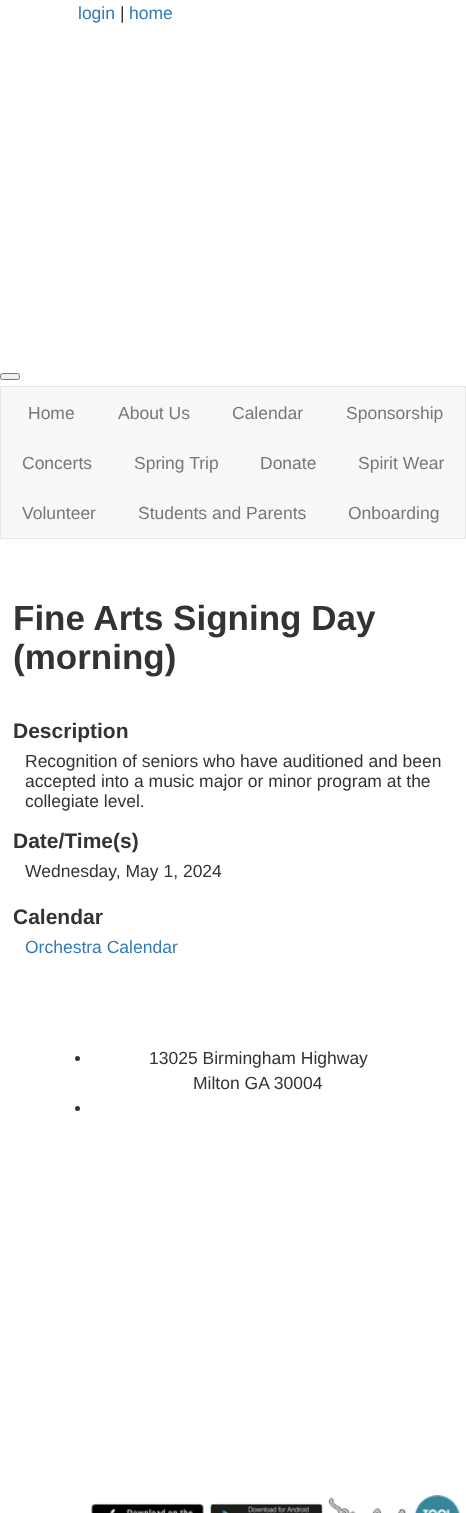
<svg xmlns="http://www.w3.org/2000/svg" xmlns:xlink="http://www.w3.org/1999/xlink" width="466" height="1513" viewBox="0 0 466 1513">
<style>
.cls-1{font:17.5px Liberation Sans;fill:#337ab7}
.cls-2{font:17.5px Liberation Sans;fill:#333333}
.cls-3{font:17.5px Liberation Sans;fill:#777777}
.cls-4{font:bold 35px Liberation Sans;fill:#333333}
.cls-5{font:bold 21px Liberation Sans;fill:#333333}
</style>
<rect width="100%" height="100%" fill="#ffffff"/>
<rect fill="#efefef" stroke="#767676" x="0.5" y="373.5" width="19" height="6" rx="2"/>
<rect fill="#f8f8f8" stroke="#e7e7e7" x="0.5" y="386.5" width="465" height="152"/>
<circle fill="#333333" cx="77.5" cy="1058.5" r="2.5"/>
<circle fill="#333333" cx="77.5" cy="1108.5" r="2.5"/>
<image xlink:href="image0.png" x="91" y="1503" width="113" height="10"/>
<image xlink:href="image1.png" x="210" y="1503" width="113" height="10"/>
<image xlink:href="image2.png" x="328" y="1495" width="132" height="18"/>
<text class="cls-1" x="78" y="19">login</text>
<text class="cls-2" x="120" y="19">|</text>
<text class="cls-1" x="129" y="19">home</text>
<text class="cls-3" x="28" y="419">Home</text>
<text class="cls-3" x="118" y="419">About Us</text>
<text class="cls-3" x="232" y="419">Calendar</text>
<text class="cls-3" x="346" y="419">Sponsorship</text>
<text class="cls-3" x="22" y="469">Concerts</text>
<text class="cls-3" x="134" y="469">Spring Trip</text>
<text class="cls-3" x="260" y="469">Donate</text>
<text class="cls-3" x="358" y="469">Spirit Wear</text>
<text class="cls-3" x="22" y="519">Volunteer</text>
<text class="cls-3" x="138" y="519">Students and Parents</text>
<text class="cls-3" x="348" y="519">Onboarding</text>
<text class="cls-4"><tspan x="13" y="630">Fine Arts Signing Day</tspan><tspan x="13" y="669">(morning)</tspan></text>
<text class="cls-5" x="13" y="738">Description</text>
<text class="cls-2"><tspan x="25" y="767">Recognition of seniors who have auditioned and been</tspan><tspan x="25" y="787">accepted into a music major or minor program at the</tspan><tspan x="25" y="807">collegiate level.</tspan></text>
<text class="cls-5" x="13" y="848">Date/Time(s)</text>
<text class="cls-2" x="25" y="877">Wednesday, May 1, 2024</text>
<text class="cls-5" x="13" y="924">Calendar</text>
<text class="cls-1" x="25" y="953">Orchestra Calendar</text>
<text class="cls-2" x="149" y="1064">13025 Birmingham Highway</text>
<text class="cls-2" x="193" y="1089">Milton GA 30004</text>
</svg>
